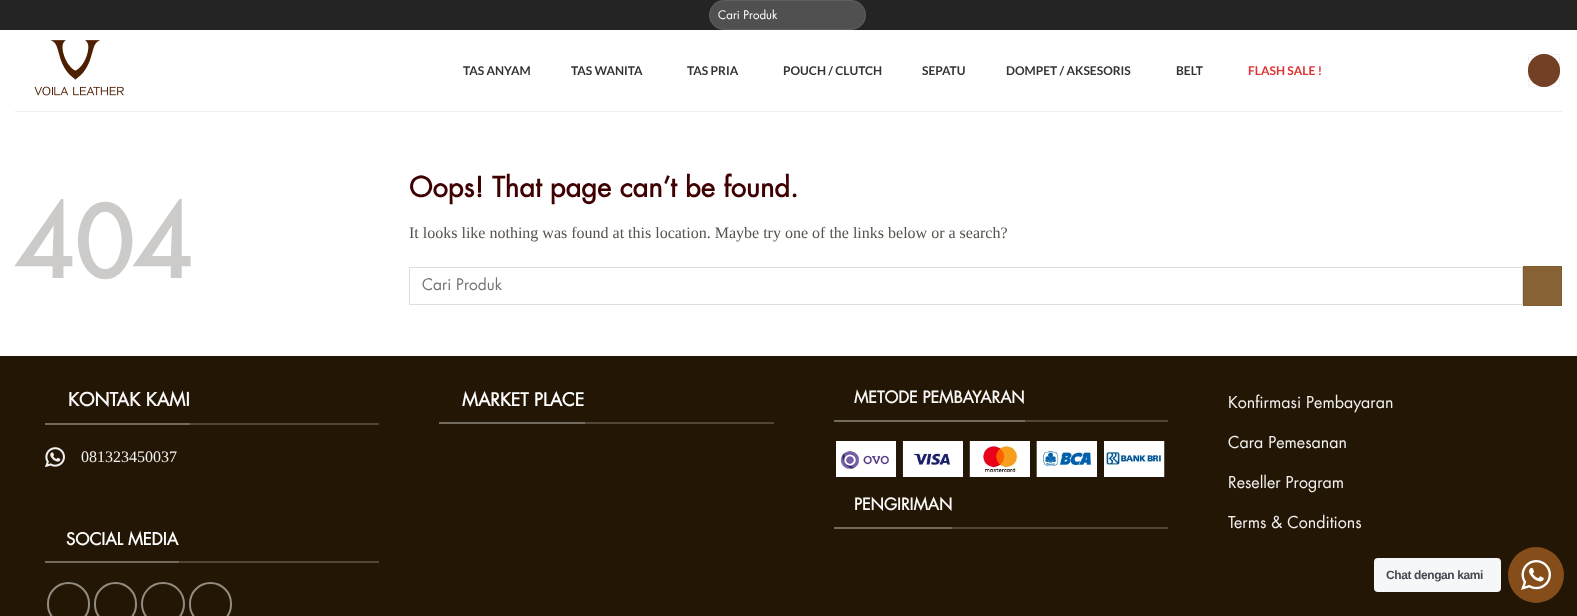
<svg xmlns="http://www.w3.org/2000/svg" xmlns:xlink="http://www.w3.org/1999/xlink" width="1577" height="616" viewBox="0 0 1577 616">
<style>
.cls-1{font:11.5px Futura;fill:#ffffff}
.cls-2{font:bold 12px Lato;fill:#333333}
.cls-3{font:bold 12px Lato;fill:#dd3333}
.cls-4{font:bold 96px Futura;fill:#cccbc9}
.cls-5{font:bold 27.25px 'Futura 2';fill:#3f0002}
.cls-6{font:16px Liberation Serif;fill:#56524c}
.cls-7{font:15.5px Futura;fill:#757575}
.cls-8{font:bold 18px 'Futura 2';fill:#faf8f8}
.cls-9{font:16px Liberation Serif;fill:#f1f1f1}
.cls-10{font:bold 16.5px 'Futura 2';fill:#ffffff}
.cls-11{font:bold 17.75px 'Futura 2';fill:#ffffff}
.cls-12{font:bold 16px 'Futura 2';fill:#faf8f8}
.cls-13{font:16px Futura;fill:#f1f1f1}
.cls-14{font:bold 12px Liberation Sans;letter-spacing:-0.4px;fill:#43474e}
</style>
<rect width="100%" height="100%" fill="#ffffff"/>
<rect fill="#242424" x="0" y="0" width="1577" height="30"/>
<rect fill="#505050" x="709" y="0" width="157" height="30" rx="15"/>
<rect fill="none" stroke="#ffffff" stroke-opacity="0.09" x="709.5" y="0.5" width="156" height="29" rx="14.5"/>
<image xlink:href="image0.png" x="34" y="40" width="90" height="56"/>
<rect fill="#733f25" x="1528" y="54" width="32" height="33" rx="16"/>
<rect fill="none" stroke="#000000" stroke-opacity="0.05" x="1528.5" y="54.5" width="31" height="32"/>
<rect fill="#eeeeed" x="15" y="111" width="1547" height="1"/>
<rect fill="none" stroke="#dddddd" x="409.5" y="267.5" width="1113" height="37"/>
<rect fill="#866235" stroke="#7f5d32" x="1523.5" y="266.5" width="38" height="39"/>
<rect fill="#241604" x="0" y="356" width="1577" height="260"/>
<rect fill="#504536" x="190" y="423" width="189" height="2"/>
<rect fill="#736a5e" x="45" y="423" width="145" height="2"/>
<image xlink:href="image1.png" x="45" y="447" width="20" height="20"/>
<rect fill="#504536" x="179" y="561" width="200" height="2"/>
<rect fill="#736a5e" x="45" y="561" width="134" height="2"/>
<rect fill="none" stroke="#928b82" stroke-width="2" x="48" y="583" width="41" height="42" rx="20.5"/>
<rect fill="none" stroke="#928b82" stroke-width="2" x="95" y="583" width="41" height="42" rx="20.5"/>
<circle fill="none" stroke="#928b82" stroke-width="2" cx="163" cy="604" r="21"/>
<rect fill="none" stroke="#928b82" stroke-width="2" x="190" y="583" width="41" height="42" rx="20.5"/>
<rect fill="#504536" x="585" y="422" width="189" height="2"/>
<rect fill="#736a5e" x="439" y="422" width="146" height="2"/>
<rect fill="#504536" x="1025" y="420" width="143" height="2"/>
<rect fill="#736a5e" x="834" y="420" width="191" height="2"/>
<image xlink:href="image2.png" x="836" y="441" width="329" height="36"/>
<rect fill="#504536" x="952" y="527" width="216" height="2"/>
<rect fill="#736a5e" x="834" y="527" width="118" height="2"/>
<rect fill="#f5f7f9" x="1374" y="558" width="127" height="34" rx="4"/>
<circle fill="#844d1a" cx="1536" cy="575" r="28"/>
<image xlink:href="image3.png" x="1521" y="560" width="30" height="30"/>
<text class="cls-1" x="718" y="19">Cari Produk</text>
<text class="cls-2" x="463" y="75">TAS ANYAM</text>
<text class="cls-2" x="571" y="75">TAS WANITA</text>
<text class="cls-2" x="687" y="75">TAS PRIA</text>
<text class="cls-2" x="783" y="75">POUCH / CLUTCH</text>
<text class="cls-2" x="922" y="75">SEPATU</text>
<text class="cls-2" x="1006" y="75">DOMPET / AKSESORIS</text>
<text class="cls-2" x="1176" y="75">BELT</text>
<text class="cls-3" x="1248" y="75">FLASH SALE !</text>
<text class="cls-4" x="15" y="278">404</text>
<text class="cls-5" x="409" y="197">Oops! That page can’t be found.</text>
<text class="cls-6" x="409" y="238">It looks like nothing was found at this location. Maybe try one of the links below or a search?</text>
<text class="cls-7" x="422" y="290">Cari Produk</text>
<text class="cls-8" x="68" y="406">KONTAK KAMI</text>
<text class="cls-9" x="81" y="462">081323450037</text>
<text class="cls-10" x="66" y="545">SOCIAL MEDIA</text>
<text class="cls-11" x="462" y="406">MARKET PLACE</text>
<text class="cls-12" x="854" y="403">METODE PEMBAYARAN</text>
<text class="cls-12" x="854" y="510">PENGIRIMAN</text>
<text class="cls-13" x="1228" y="408">Konfirmasi Pembayaran</text>
<text class="cls-13" x="1228" y="448">Cara Pemesanan</text>
<text class="cls-13" x="1228" y="488">Reseller Program</text>
<text class="cls-13" x="1228" y="528">Terms &amp; Conditions</text>
<text class="cls-14" x="1386" y="579">Chat dengan kami</text>
</svg>
